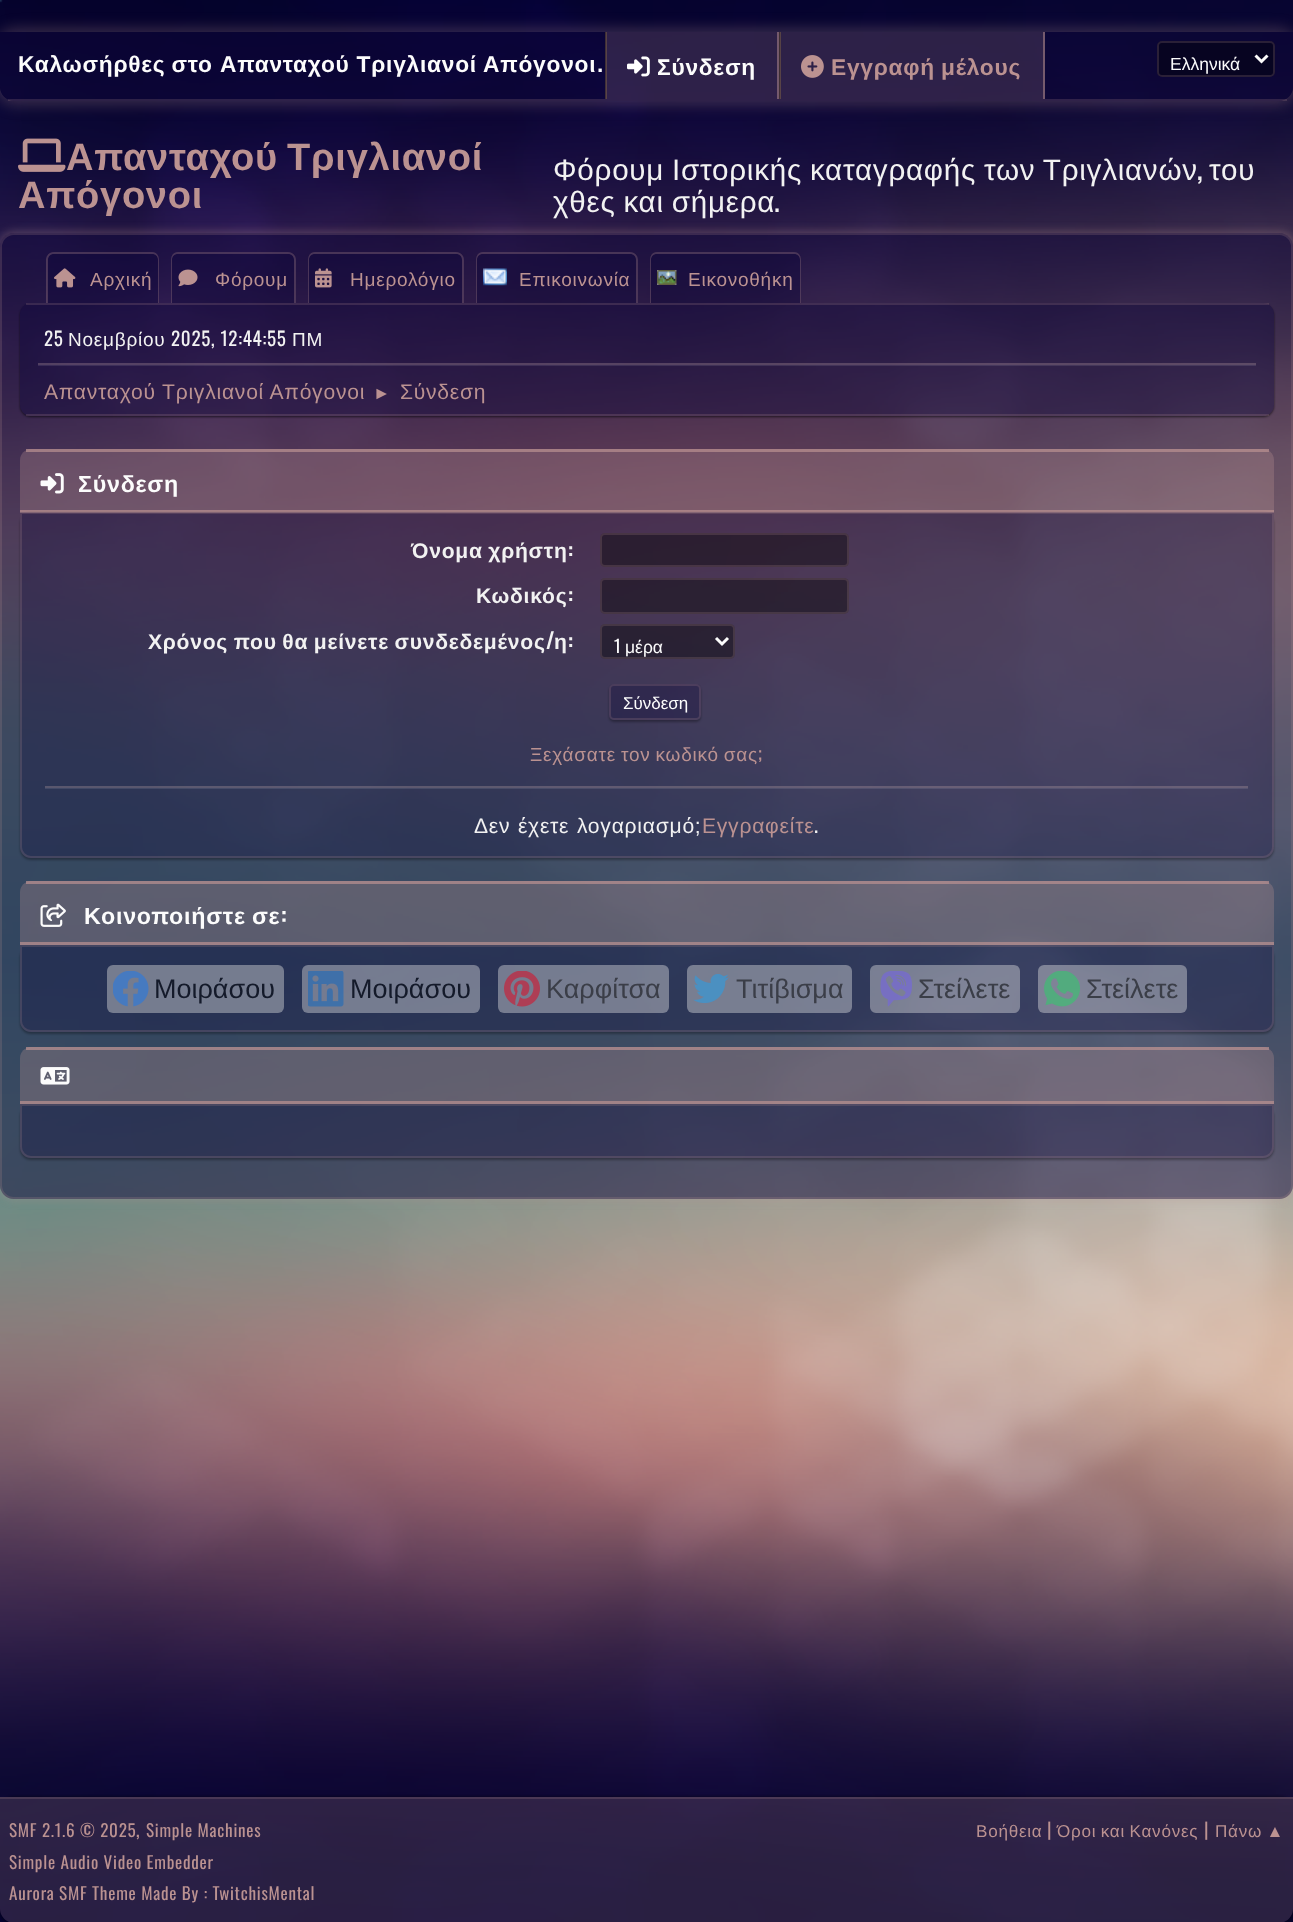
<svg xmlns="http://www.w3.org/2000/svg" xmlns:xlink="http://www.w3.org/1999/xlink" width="1293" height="1922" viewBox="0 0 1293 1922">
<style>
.cls-1{font:bold 22.75px Liberation Sans;letter-spacing:0.75px;fill:#fcfcfc}
.cls-2{font:bold 22.75px Liberation Sans;letter-spacing:0.75px;fill:#bb9291}
.cls-3{font:17.5px Liberation Sans;fill:#fcfcfc}
.cls-4{font:bold 38px Liberation Sans;letter-spacing:0.75px;fill:#bb9291}
.cls-5{font:29.6px Liberation Sans;letter-spacing:0.75px;fill:#f2f2f2}
.cls-6{font:29.6px Oswald;letter-spacing:0.75px;fill:#f2f2f2}
.cls-7{font:19px Liberation Sans;letter-spacing:0.75px;fill:#bb9291}
.cls-8{font:19px Oswald;letter-spacing:0.75px;fill:#f2f2f2}
.cls-9{font:19px Liberation Sans;letter-spacing:0.75px;fill:#f2f2f2}
.cls-10{font:21.1px Liberation Sans;letter-spacing:0.75px;fill:#bb9291}
.cls-11{font:17.5px Liberation Sans;letter-spacing:0.75px;fill:#bb9291}
.cls-12{font:bold 23.25px Liberation Sans;letter-spacing:0.75px;fill:#fcfcfc}
.cls-13{font:bold 21.1px Liberation Sans;letter-spacing:0.75px;fill:#f2f2f2}
.cls-14{font:bold 21.1px Oswald;letter-spacing:0.75px;fill:#f2f2f2}
.cls-15{font:17.5px Oswald;fill:#fcfcfc}
.cls-16{font:17px Liberation Sans;fill:#fcfcfc}
.cls-17{font:19px Oswald;letter-spacing:0.75px;fill:#bb9291}
.cls-18{font:21.1px Liberation Sans;letter-spacing:0.75px;fill:#f2f2f2}
.cls-19{font:21.1px Oswald;letter-spacing:0.75px;fill:#f2f2f2}
.cls-20{font:bold 23.25px Oswald;letter-spacing:0.75px;fill:#fcfcfc}
.cls-21{font:27px Liberation Sans;fill:#141a2a}
.cls-22{font:27px Liberation Sans;fill:#3b3e48}
.cls-23{font:17.1px Oswald;letter-spacing:0.75px;fill:#bb9291}
.cls-24{font:17.1px Liberation Sans;letter-spacing:0.75px;fill:#bb9291}
</style>
<defs>
<clipPath id="clip1"><path d="M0 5H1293V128H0ZM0 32H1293V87C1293 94.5 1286.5 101 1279 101H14C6.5 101 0 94.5 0 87Z" clip-rule="evenodd"/></clipPath>
<clipPath id="clip2"><path d="M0 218H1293V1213H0ZM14 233H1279C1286.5 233 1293 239.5 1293 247V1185C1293 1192.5 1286.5 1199 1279 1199H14C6.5 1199 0 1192.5 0 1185V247C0 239.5 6.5 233 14 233Z" clip-rule="evenodd"/></clipPath>
<clipPath id="clip3"><path d="M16 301H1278V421H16ZM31 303H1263C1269 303 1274 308 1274 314V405C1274 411 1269 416 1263 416H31C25 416 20 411 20 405V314C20 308 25 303 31 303Z" clip-rule="evenodd"/></clipPath>
<clipPath id="clip4"><path d="M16 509H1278V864H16ZM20 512H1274V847C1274 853 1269 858 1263 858H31C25 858 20 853 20 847Z" clip-rule="evenodd"/></clipPath>
<clipPath id="clip5"><path d="M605 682H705V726H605ZM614 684H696C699 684 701 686 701 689V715C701 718 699 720 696 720H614C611 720 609 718 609 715V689C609 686 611 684 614 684Z" clip-rule="evenodd"/></clipPath>
<clipPath id="clip6"><path d="M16 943H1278V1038H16ZM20 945H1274V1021C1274 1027 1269 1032 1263 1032H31C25 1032 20 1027 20 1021Z" clip-rule="evenodd"/></clipPath>
<clipPath id="clip7"><path d="M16 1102H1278V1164H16ZM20 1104H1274V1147C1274 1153 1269 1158 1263 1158H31C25 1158 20 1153 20 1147Z" clip-rule="evenodd"/></clipPath>
<clipPath id="clip8"><path d="M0 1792H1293V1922H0ZM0 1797H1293V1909C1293 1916.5 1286.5 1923 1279 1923H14C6.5 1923 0 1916.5 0 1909Z" clip-rule="evenodd"/></clipPath>
</defs>
<rect width="100%" height="100%" fill="#ffffff"/>
<image xlink:href="image0.png" x="0" y="0" width="1293" height="1922"/>
<g clip-path="url(#clip1)">
<rect fill="#bb9291" fill-opacity="0.3" filter="blur(7.5px)" x="-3" y="29" width="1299" height="75" rx="17"/>
</g>
<path fill="#0d063a" fill-opacity="0.5" d="M0 32H1293V87C1293 94.5 1286.5 101 1279 101H14C6.5 101 0 94.5 0 87Z"/>
<rect fill="#bb9291" fill-opacity="0.2" x="8" y="99" width="1279" height="2"/>
<rect fill="#bb9291" fill-opacity="0.6" x="777" y="32" width="2" height="67"/>
<rect fill="#bb922d" fill-opacity="0.3" x="605" y="32" width="2" height="67"/>
<rect fill="#bb9291" fill-opacity="0.2" x="606" y="32" width="171" height="67"/>
<image xlink:href="image1.png" x="627" y="56" width="23" height="21"/>
<rect fill="#755a6d" x="1043" y="32" width="2" height="67"/>
<rect fill="#bb922d" fill-opacity="0.3" x="779" y="32" width="2" height="67"/>
<rect fill="#bb9291" fill-opacity="0.2" x="780" y="32" width="263" height="67"/>
<image xlink:href="image2.png" x="801" y="55" width="23" height="23"/>
<rect fill="#070421" x="1157" y="41" width="118" height="36" rx="5"/>
<rect fill="none" stroke="#bb9291" stroke-opacity="0.2" stroke-width="2" x="1158" y="42" width="116" height="34" rx="4"/>
<path fill="none" stroke="#fcfcfc" stroke-width="3" d="M1255.5 55.5L1261.5 61.5L1267.5 55.5"/>
<image xlink:href="image3.png" x="18" y="138" width="48" height="34"/>
<g clip-path="url(#clip2)">
<rect fill="#bb9291" fill-opacity="0.3" filter="blur(4px)" x="-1" y="231" width="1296" height="969" rx="15"/>
</g>
<rect fill="#0d063a" fill-opacity="0.5" x="0" y="233" width="1293" height="966" rx="14"/>
<rect fill="none" stroke="#bb9291" stroke-opacity="0.2" stroke-width="2" x="1" y="234" width="1291" height="964" rx="13"/>
<g clip-path="url(#clip3)">
<rect fill="#000000" fill-opacity="0.6" filter="blur(1px)" x="20" y="305" width="1254" height="112" rx="11"/>
</g>
<path fill="#0d063a" fill-opacity="0.4" d="M55 252H151C155.5 252 159 255.5 159 260V303H47V260C47 255.5 50.5 252 55 252Z"/>
<path fill="#bb9291" fill-opacity="0.3" fill-rule="evenodd" d="M54 252H152C156 252 159 255 159 260V303H46V260C46 255 50 252 54 252ZM54 254H152C155 254 158 256 158 260V303H48V260C48 256 51 254 54 254Z"/>
<image xlink:href="image4.png" x="54" y="268" width="22" height="20"/>
<path fill="#0d063a" fill-opacity="0.4" d="M179 252H288C292.5 252 296 255.5 296 260V303H171V260C171 255.5 174.5 252 179 252Z"/>
<path fill="#bb9291" fill-opacity="0.3" fill-rule="evenodd" d="M178 252H288C292 252 296 255 296 260V303H171V260C171 255 174 252 178 252ZM178 254H288C291 254 294 256 294 260V303H172V260C172 256 175 254 178 254Z"/>
<image xlink:href="image5.png" x="178" y="269" width="20" height="18"/>
<path fill="#0d063a" fill-opacity="0.4" d="M316 252H456C460.5 252 464 255.5 464 260V303H308V260C308 255.5 311.5 252 316 252Z"/>
<path fill="#bb9291" fill-opacity="0.3" fill-rule="evenodd" d="M315 252H456C460 252 464 255 464 260V303H308V260C308 255 311 252 315 252ZM315 254H456C459 254 462 256 462 260V303H309V260C309 256 312 254 315 254Z"/>
<image xlink:href="image6.png" x="315" y="268" width="17" height="20"/>
<path fill="#0d063a" fill-opacity="0.4" d="M484 252H630C634.5 252 638 255.5 638 260V303H476V260C476 255.5 479.5 252 484 252Z"/>
<path fill="#bb9291" fill-opacity="0.3" fill-rule="evenodd" d="M483 252H630C634 252 638 255 638 260V303H476V260C476 255 479 252 483 252ZM483 254H630C633 254 636 256 636 260V303H477V260C477 256 480 254 483 254Z"/>
<image xlink:href="image7.png" x="483" y="268" width="24" height="18"/>
<path fill="#0d063a" fill-opacity="0.4" d="M658 252H793C797.5 252 801 255.5 801 260V303H650V260C650 255.5 653.5 252 658 252Z"/>
<path fill="#bb9291" fill-opacity="0.3" fill-rule="evenodd" d="M657 252H794C798 252 801 255 801 260V303H650V260C650 255 653 252 657 252ZM657 254H794C797 254 800 256 800 260V303H651V260C651 256 654 254 657 254Z"/>
<image xlink:href="image8.png" x="657" y="270" width="20" height="15"/>
<rect fill="#0d063a" fill-opacity="0.4" x="20" y="303" width="1254" height="113" rx="11"/>
<rect fill="#bb9291" fill-opacity="0.2" x="26" y="303" width="1243" height="2"/>
<rect fill="#bb9291" fill-opacity="0.2" x="26" y="414" width="1243" height="2"/>
<rect fill="#ffffff" fill-opacity="0.1" x="38" y="363" width="1218" height="3"/>
<rect fill="#bb9291" fill-opacity="0.2" x="38" y="363" width="1218" height="2"/>
<path fill="#bb9291" fill-opacity="0.3" d="M31 449H1263C1269 449 1274 454 1274 460V513H20V460C20 454 25 449 31 449Z"/>
<rect fill="#bb9291" fill-opacity="0.7" x="26" y="449" width="1243" height="3"/>
<rect fill="#bb9291" fill-opacity="0.7" x="20" y="510" width="1254" height="3"/>
<image xlink:href="image9.png" x="40" y="473" width="24" height="21"/>
<g clip-path="url(#clip4)">
<rect fill="#000000" fill-opacity="0.3" filter="blur(1px)" x="20" y="513" width="1254" height="347" rx="11"/>
</g>
<path fill="#0d063a" fill-opacity="0.3" d="M20 512H1274V847C1274 853 1269 858 1263 858H31C25 858 20 853 20 847Z"/>
<path fill="none" stroke="#bb9291" stroke-opacity="0.2" stroke-width="2" d="M21 513H1273V847C1273 852.5 1268.5 857 1263 857H31C25.5 857 21 852.5 21 847Z"/>
<rect fill="#000000" fill-opacity="0.4" x="600" y="533" width="249" height="34" rx="5"/>
<rect fill="none" stroke="#bb9291" stroke-opacity="0.2" stroke-width="2" x="601" y="534" width="247" height="32" rx="4"/>
<rect fill="#000000" fill-opacity="0.4" x="600" y="578" width="249" height="36" rx="5"/>
<rect fill="none" stroke="#bb9291" stroke-opacity="0.2" stroke-width="2" x="601" y="579" width="247" height="34" rx="4"/>
<rect fill="#000000" fill-opacity="0.4" x="600" y="624" width="135" height="35" rx="5"/>
<rect fill="none" stroke="#bb9291" stroke-opacity="0.2" stroke-width="2" x="601" y="625" width="133" height="33" rx="4"/>
<path fill="none" stroke="#fcfcfc" stroke-width="3" d="M716 638L722 644L728 638"/>
<g clip-path="url(#clip5)">
<rect fill="#000000" fill-opacity="0.3" filter="blur(1px)" x="609" y="686" width="92" height="36" rx="5"/>
</g>
<rect fill="#0d063a" fill-opacity="0.3" x="609" y="684" width="92" height="36" rx="5"/>
<rect fill="none" stroke="#bb9291" stroke-opacity="0.2" stroke-width="2" x="610" y="685" width="90" height="34" rx="4"/>
<rect fill="#ffffff" fill-opacity="0.1" x="45" y="786" width="1203" height="3"/>
<rect fill="#bb9291" fill-opacity="0.2" x="45" y="786" width="1203" height="2"/>
<path fill="#bb9291" fill-opacity="0.3" d="M31 881H1263C1269 881 1274 886 1274 892V945H20V892C20 886 25 881 31 881Z"/>
<rect fill="#bb9291" fill-opacity="0.7" x="26" y="881" width="1243" height="3"/>
<rect fill="#bb9291" fill-opacity="0.7" x="20" y="942" width="1254" height="3"/>
<image xlink:href="image10.png" x="40" y="903" width="26" height="24"/>
<g clip-path="url(#clip6)">
<rect fill="#000000" fill-opacity="0.3" filter="blur(1px)" x="20" y="947" width="1254" height="87" rx="11"/>
</g>
<path fill="#0d063a" fill-opacity="0.3" d="M20 945H1274V1021C1274 1027 1269 1032 1263 1032H31C25 1032 20 1027 20 1021Z"/>
<path fill="none" stroke="#bb9291" stroke-opacity="0.2" stroke-width="2" d="M21 946H1273V1021C1273 1026.5 1268.5 1031 1263 1031H31C25.5 1031 21 1026.5 21 1021Z"/>
<rect fill="#757c8f" x="107" y="965" width="177" height="48" rx="6"/>
<image xlink:href="image11.png" x="113" y="971" width="36" height="36"/>
<rect fill="#e8e8e8" fill-opacity="0.4" x="302" y="965" width="178" height="48" rx="6"/>
<image xlink:href="image12.png" x="308" y="971" width="36" height="36"/>
<rect fill="#e8e8e8" fill-opacity="0.4" x="498" y="965" width="171" height="48" rx="6"/>
<image xlink:href="image13.png" x="504" y="971" width="36" height="36"/>
<rect fill="#e8e8e8" fill-opacity="0.4" x="687" y="965" width="165" height="48" rx="6"/>
<image xlink:href="image14.png" x="693" y="974" width="36" height="29"/>
<rect fill="#e8e8e8" fill-opacity="0.4" x="870" y="965" width="150" height="48" rx="6"/>
<image xlink:href="image15.png" x="880" y="971" width="32" height="36"/>
<rect fill="#e8e8e8" fill-opacity="0.4" x="1038" y="965" width="149" height="48" rx="6"/>
<image xlink:href="image16.png" x="1044" y="971" width="36" height="36"/>
<path fill="#bb9291" fill-opacity="0.3" d="M31 1047H1263C1269 1047 1274 1052 1274 1058V1104H20V1058C20 1052 25 1047 31 1047Z"/>
<rect fill="#bb9291" fill-opacity="0.7" x="26" y="1047" width="1243" height="3"/>
<rect fill="#bb9291" fill-opacity="0.7" x="20" y="1101" width="1254" height="3"/>
<image xlink:href="image17.png" x="40" y="1067" width="30" height="18"/>
<g clip-path="url(#clip7)">
<rect fill="#000000" fill-opacity="0.3" filter="blur(1px)" x="20" y="1106" width="1254" height="54" rx="11"/>
</g>
<path fill="#0d063a" fill-opacity="0.3" d="M20 1104H1274V1147C1274 1153 1269 1158 1263 1158H31C25 1158 20 1153 20 1147Z"/>
<path fill="none" stroke="#bb9291" stroke-opacity="0.2" stroke-width="2" d="M21 1105H1273V1147C1273 1152.5 1268.5 1157 1263 1157H31C25.5 1157 21 1152.5 21 1147Z"/>
<g clip-path="url(#clip8)">
<rect fill="#000000" fill-opacity="0.3" filter="blur(1px)" x="-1" y="1796" width="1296" height="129" rx="15"/>
</g>
<path fill="#bb9291" fill-opacity="0.2" d="M0 1797H1293V1909C1293 1916.5 1286.5 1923 1279 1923H14C6.5 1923 0 1916.5 0 1909Z"/>
<rect fill="#bb9291" fill-opacity="0.2" x="0" y="1797" width="1293" height="2"/>
<text class="cls-1" x="18" y="72" word-spacing="-1">Καλωσήρθες στο</text>
<text class="cls-1" x="220" y="72">Απανταχού Τριγλιανοί Απόγονοι</text>
<text class="cls-1" x="597" y="72">.</text>
<text class="cls-1" x="657" y="75">Σύνδεση</text>
<text class="cls-2" x="831" y="75" word-spacing="-1">Εγγραφή μέλους</text>
<text class="cls-3" x="1170" y="70">Ελληνικά</text>
<text class="cls-4" x="66" y="170" word-spacing="-2">Απανταχού Τριγλιανοί</text>
<text class="cls-4" x="18" y="208">Απόγονοι</text>
<text class="cls-5" x="553" y="180" word-spacing="-1">Φόρουμ Ιστορικής καταγραφής των Τριγλιανών</text>
<text class="cls-6" x="1197" y="180">,</text>
<text class="cls-5" x="1209" y="180">του</text>
<text class="cls-5" x="553" y="212" word-spacing="-1">χθες και σήμερα</text>
<text class="cls-6" x="774" y="212">.</text>
<text class="cls-7" x="90" y="286">Αρχική</text>
<text class="cls-7" x="215" y="286">Φόρουμ</text>
<text class="cls-7" x="350" y="286">Ημερολόγιο</text>
<text class="cls-7" x="519" y="286">Επικοινωνία</text>
<text class="cls-7" x="688" y="286">Εικονοθήκη</text>
<text class="cls-8" x="44" y="346">25</text>
<text class="cls-9" x="68" y="346">Νοεμβρίου</text>
<text class="cls-8" x="171" y="346">2025, 12:44:55</text>
<text class="cls-9" x="292" y="346">ΠΜ</text>
<text class="cls-10" x="44" y="399">Απανταχού Τριγλιανοί Απόγονοι</text>
<text class="cls-11" x="373" y="399">►</text>
<text class="cls-10" x="400" y="399">Σύνδεση</text>
<text class="cls-12" x="78" y="492">Σύνδεση</text>
<text class="cls-13" x="411" y="558" word-spacing="-1">Όνομα χρήστη</text>
<text class="cls-14" x="568" y="558">:</text>
<text class="cls-13" x="476" y="603">Κωδικός</text>
<text class="cls-14" x="568" y="603">:</text>
<text class="cls-13" x="148" y="649" word-spacing="-1">Χρόνος που θα μείνετε συνδεδεμένος</text>
<text class="cls-14" x="546" y="649">/</text>
<text class="cls-13" x="554" y="649">η</text>
<text class="cls-14" x="568" y="649">:</text>
<text class="cls-15" x="614" y="653">1</text>
<text class="cls-3" x="625" y="653">μέρα</text>
<text class="cls-16" x="623" y="709">Σύνδεση</text>
<text class="cls-7" x="530" y="761" word-spacing="-1">Ξεχάσατε τον κωδικό σας</text>
<text class="cls-17" x="758" y="761">;</text>
<text class="cls-18" x="474" y="833" word-spacing="1">Δεν έχετε λογαριασμό;</text>
<text class="cls-10" x="702" y="833">Εγγραφείτε</text>
<text class="cls-19" x="814" y="833">.</text>
<text class="cls-12" x="84" y="924" word-spacing="-1">Κοινοποιήστε σε</text>
<text class="cls-20" x="281" y="924">:</text>
<text class="cls-21" x="154" y="998">Μοιράσου</text>
<text class="cls-21" x="350" y="998">Μοιράσου</text>
<text class="cls-22" x="546" y="998">Καρφίτσα</text>
<text class="cls-22" x="736" y="998">Τιτίβισμα</text>
<text class="cls-22" x="918" y="998">Στείλετε</text>
<text class="cls-22" x="1086" y="998">Στείλετε</text>
<text class="cls-23" x="9" y="1837">SMF 2.1.6 © 2025</text>
<text class="cls-17" x="136" y="1837">,</text>
<text class="cls-23" x="146" y="1837">Simple Machines</text>
<text class="cls-23"><tspan x="9" y="1869">Simple Audio Video Embedder</tspan><tspan x="9" y="1900">Aurora SMF Theme Made By : TwitchisMental</tspan></text>
<text class="cls-24" x="976" y="1837">Βοήθεια</text>
<text class="cls-17" x="1047" y="1837">|</text>
<text class="cls-24" x="1057" y="1837" word-spacing="-1">Όροι και Κανόνες</text>
<text class="cls-17" x="1204" y="1837">|</text>
<text class="cls-24" x="1215" y="1837" word-spacing="-1">Πάνω ▲</text>
</svg>
